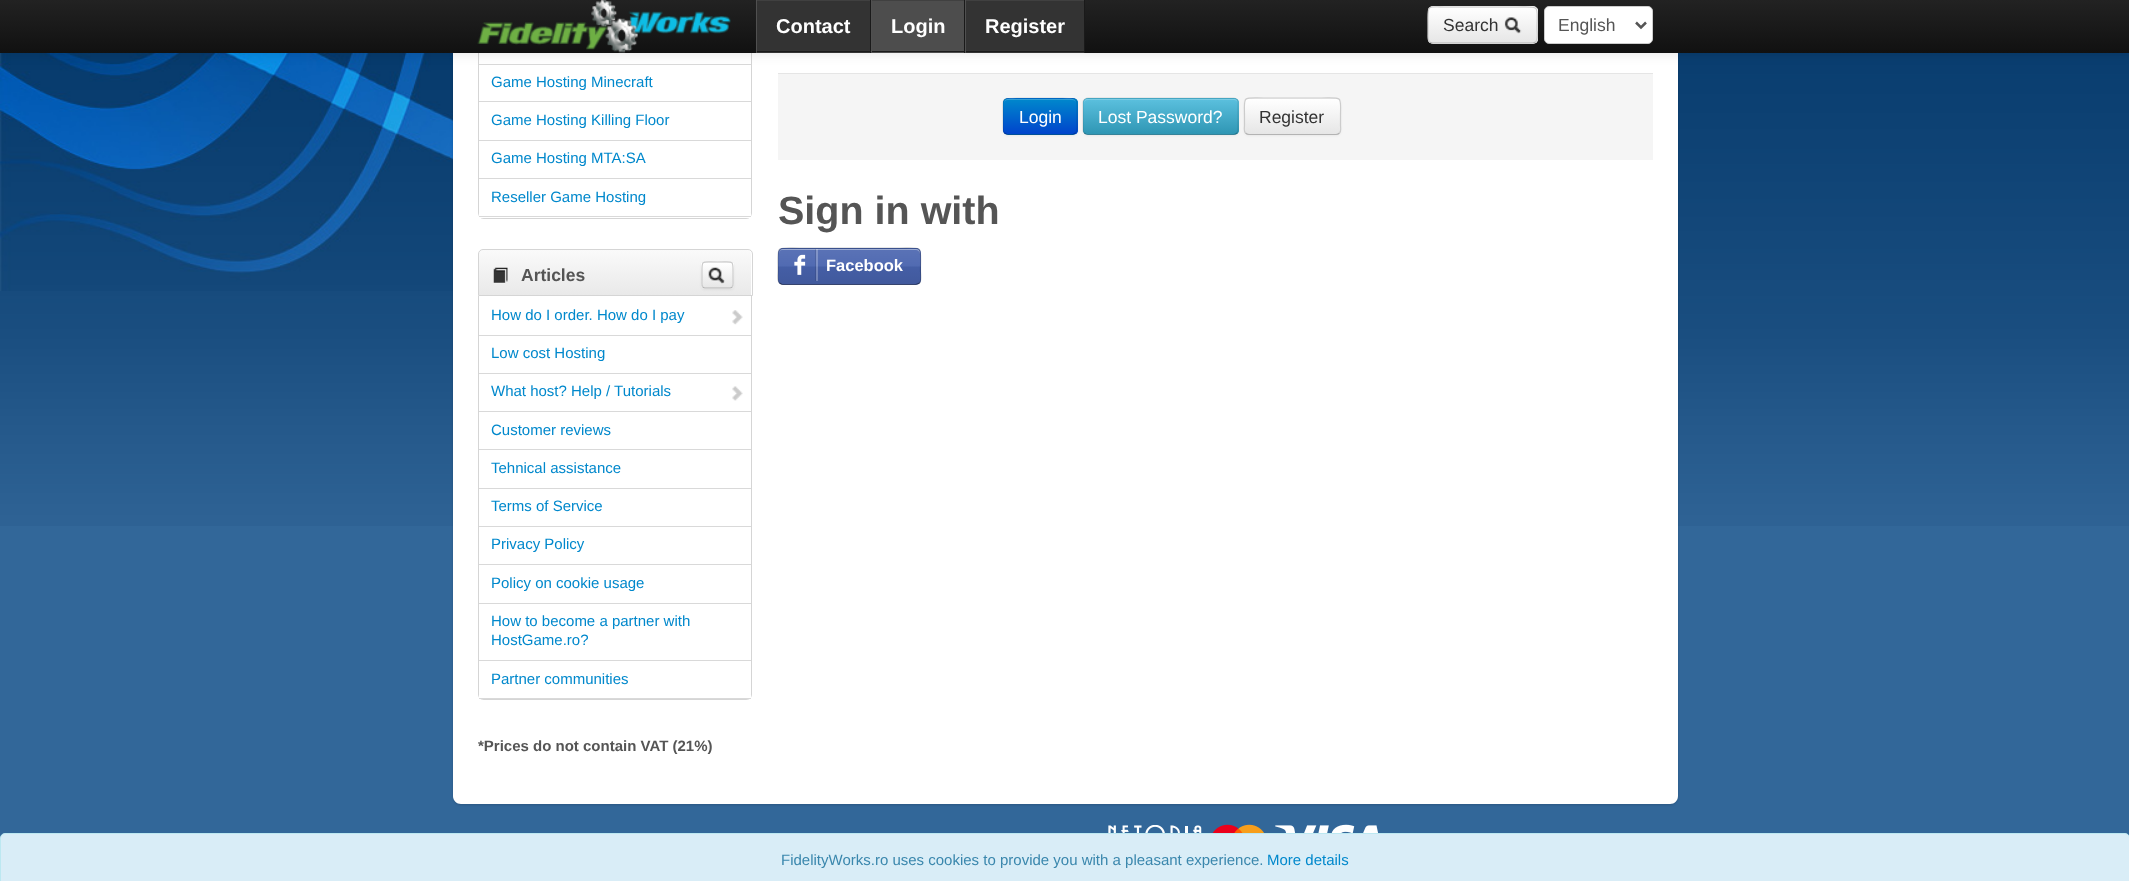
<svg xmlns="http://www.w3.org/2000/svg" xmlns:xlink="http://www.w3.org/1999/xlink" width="2129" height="881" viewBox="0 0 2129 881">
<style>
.cls-1{font:bold 20px Liberation Sans;fill:#ffffff}
.cls-2{font:17.5px Liberation Sans;fill:#333333}
.cls-3{font:17.5px Liberation Sans;fill:#555555}
.cls-4{font:15px Liberation Sans;fill:#0088cc}
.cls-5{font:bold 17.5px Liberation Sans;fill:#555555}
.cls-6{font:bold 15px Liberation Sans;fill:#555555}
.cls-7{font:17.5px Liberation Sans;fill:#ffffff}
.cls-8{font:bold 39.5px Liberation Sans;fill:#555555}
.cls-9{font:bold 16.5px Liberation Sans;fill:#ffffff}
.cls-10{font:15px Liberation Sans;fill:#3a87ad}
</style>
<defs>
<linearGradient id="g1" gradientUnits="userSpaceOnUse" x1="1065" y1="0" x2="1065" y2="53"><stop offset="0" stop-color="#222222"/><stop offset="1" stop-color="#111111"/></linearGradient>
<clipPath id="clip1"><rect x="1428" y="6" width="110" height="38" rx="5"/></clipPath>
<linearGradient id="g2" gradientUnits="userSpaceOnUse" x1="1483" y1="7.5" x2="1483" y2="43"><stop offset="0" stop-color="#ffffff"/><stop offset="1" stop-color="#e6e6e6"/></linearGradient>
<linearGradient id="g3" gradientUnits="userSpaceOnUse" x1="615" y1="250" x2="615" y2="295"><stop offset="0" stop-color="#fafafa"/><stop offset="1" stop-color="#e9e9e9"/></linearGradient>
<clipPath id="clip2"><rect x="701" y="261" width="33" height="28" rx="4"/></clipPath>
<linearGradient id="g4" gradientUnits="userSpaceOnUse" x1="718" y1="263" x2="718" y2="288"><stop offset="0" stop-color="#ffffff"/><stop offset="1" stop-color="#e6e6e6"/></linearGradient>
<clipPath id="clip3"><rect x="1003" y="98" width="75" height="37" rx="5"/></clipPath>
<linearGradient id="g5" gradientUnits="userSpaceOnUse" x1="1040" y1="99" x2="1040" y2="134"><stop offset="0" stop-color="#0088cc"/><stop offset="1" stop-color="#0044cc"/></linearGradient>
<clipPath id="clip4"><rect x="1083" y="98" width="156" height="37" rx="5"/></clipPath>
<linearGradient id="g6" gradientUnits="userSpaceOnUse" x1="1161" y1="99" x2="1161" y2="134"><stop offset="0" stop-color="#5bc0de"/><stop offset="1" stop-color="#2f96b4"/></linearGradient>
<clipPath id="clip5"><rect x="1244" y="98" width="97" height="37" rx="5"/></clipPath>
<linearGradient id="g7" gradientUnits="userSpaceOnUse" x1="1293" y1="99" x2="1293" y2="134"><stop offset="0" stop-color="#ffffff"/><stop offset="1" stop-color="#e6e6e6"/></linearGradient>
<clipPath id="clip6"><rect x="778" y="248" width="143" height="37" rx="5"/></clipPath>
<linearGradient id="g8" gradientUnits="userSpaceOnUse" x1="849" y1="214" x2="849" y2="249"><stop offset="0" stop-color="#ffffff" stop-opacity="0.1"/><stop offset="0.49" stop-color="#ffffff" stop-opacity="0.05"/><stop offset="0.51" stop-color="#000000" stop-opacity="0.05"/><stop offset="1" stop-color="#000000" stop-opacity="0.1"/></linearGradient>
<linearGradient id="g9" gradientUnits="userSpaceOnUse" x1="849" y1="249" x2="849" y2="284"><stop offset="0" stop-color="#ffffff" stop-opacity="0.1"/><stop offset="0.49" stop-color="#ffffff" stop-opacity="0.05"/><stop offset="0.51" stop-color="#000000" stop-opacity="0.05"/><stop offset="1" stop-color="#000000" stop-opacity="0.1"/></linearGradient>
<linearGradient id="g10" gradientUnits="userSpaceOnUse" x1="849" y1="284" x2="849" y2="319"><stop offset="0" stop-color="#ffffff" stop-opacity="0.1"/><stop offset="0.49" stop-color="#ffffff" stop-opacity="0.05"/><stop offset="0.51" stop-color="#000000" stop-opacity="0.05"/><stop offset="1" stop-color="#000000" stop-opacity="0.1"/></linearGradient>
</defs>
<rect width="100%" height="100%" fill="#326799"/>
<image xlink:href="image0.png" x="0" y="53" width="2129" height="473"/>
<image xlink:href="image1.png" x="0" y="53" width="453" height="238"/>
<rect fill="#000000" fill-opacity="0.15" filter="blur(1px)" x="453" y="-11" width="1225" height="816" rx="8"/>
<path fill="#ffffff" d="M453-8H1678V796C1678 800.5 1674.5 804 1670 804H461C456.5 804 453 800.5 453 796Z"/>
<path fill="#d5d5d5" fill-rule="evenodd" d="M478-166H752V212C752 216 750 219 746 219H484C480 219 478 216 478 212ZM479-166H751V212C751 215 749 218 746 218H484C481 218 479 215 479 212Z"/>
<rect fill="#d9d9d9" x="479" y="64" width="272" height="1"/>
<rect fill="#000000" fill-opacity="0.1" filter="blur(6px)" x="0" y="1" width="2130" height="53"/>
<rect fill="url(#g1)" x="0" y="0" width="2129" height="53"/>
<image xlink:href="image2.png" x="477" y="0" width="254" height="53"/>
<rect fill="#333333" x="757" y="1" width="113" height="52"/>
<rect fill="#404040" x="756" y="0" width="329" height="1"/>
<rect fill="#1a1a1a" x="870" y="0" width="1" height="53"/>
<rect fill="#1a1a1a" x="756" y="51" width="115" height="1"/>
<rect fill="#505050" x="756" y="0" width="1" height="53"/>
<rect fill="#4d4d4d" x="872" y="1" width="92" height="52"/>
<rect fill="#1a1a1a" x="964" y="0" width="1" height="53"/>
<rect fill="#1a1a1a" x="871" y="51" width="94" height="1"/>
<rect fill="#505050" x="871" y="0" width="1" height="53"/>
<rect fill="#333333" x="966" y="1" width="118" height="52"/>
<rect fill="#1a1a1a" x="1084" y="0" width="1" height="53"/>
<rect fill="#1a1a1a" x="965" y="51" width="120" height="1"/>
<rect fill="#505050" x="965" y="0" width="1" height="53"/>
<rect fill="#f5f5f5" x="1428" y="6" width="110" height="38" rx="5"/>
<g clip-path="url(#clip1)">
<rect fill="url(#g2)" x="1428" y="8" width="110" height="35"/>
</g>
<path fill="none" stroke="#b3b3b3" stroke-width="1.2" d="M1535.5 42L1533 43H1432L1429.5 42"/>
<path fill="none" stroke="#cccccc" stroke-width="1.2" d="M1429.5 42C1427.5 40 1428 36.5 1428 34V25C1428 3 1425.5 7 1449 7H1516C1541.5 7 1537 4 1537 29.5C1537 32.5 1538.5 39 1535.5 42"/>
<image xlink:href="image3.png" x="1504" y="17" width="18" height="17"/>
<rect fill="#ffffff" stroke="#cccccc" x="1544.5" y="6.5" width="108" height="37" rx="4.5"/>
<path fill="none" stroke="#555555" stroke-width="2.5" d="M1636 22.5L1641 27.5L1646 22.5"/>
<rect fill="#d9d9d9" x="479" y="101" width="272" height="1"/>
<rect fill="#d9d9d9" x="479" y="140" width="272" height="1"/>
<rect fill="#ffffff" x="479" y="213" width="272" height="5"/>
<rect fill="#d9d9d9" x="479" y="178" width="272" height="1"/>
<rect fill="#d9d9d9" x="479" y="216" width="272" height="1"/>
<path fill="url(#g3)" d="M483 250H747C749 250 751 252 751 254V295H479V254C479 252 481 250 483 250Z"/>
<path fill="none" stroke="#d5d5d5" d="M483 249.5H748C750.5 249.5 752.5 251.5 752.5 254V295.5H478.5V254C478.5 251.5 480.5 249.5 483 249.5Z"/>
<image xlink:href="image4.png" x="493" y="267" width="15" height="17"/>
<rect fill="#000000" fill-opacity="0.05" filter="blur(1px)" x="701" y="263" width="33" height="27" rx="4"/>
<rect fill="#f5f5f5" x="701" y="261" width="33" height="28" rx="4"/>
<g clip-path="url(#clip2)">
<rect fill="url(#g4)" x="701" y="263" width="33" height="25"/>
</g>
<path fill="#ffffff" fill-opacity="0.2" d="M705 264H730C731 264 732 265 732 266V286L731.5 287.5C732.5 287.5 733 286.5 733 285.5V265.5C733 264 732 263 730.5 263H705.5C704.5 263 703.5 263.5 703 264.5Z"/>
<path fill="none" stroke="#b3b3b3" stroke-width="1.2" d="M732 287C731.5 288 731 288 730 288H705C704 288 703.5 288 703 287"/>
<path fill="none" stroke="#cccccc" stroke-width="1.2" d="M703 287C701.5 286 702 283.5 702 281.5V275C702 259 700.5 262 717.5 262C734.5 262 733 259 733 275V281.5C733 283.5 733.5 286 732 287"/>
<image xlink:href="image5.png" x="708" y="267" width="17" height="17"/>
<path fill="#d5d5d5" fill-rule="evenodd" d="M478 296H752V694C752 697 750 700 746 700H484C480 700 478 697 478 694ZM479 296H751V694C751 697 749 699 746 699H484C481 699 479 697 479 694Z"/>
<image xlink:href="image6.png" x="732" y="310" width="11" height="15"/>
<rect fill="#d9d9d9" x="479" y="335" width="272" height="1"/>
<rect fill="#d9d9d9" x="479" y="373" width="272" height="1"/>
<image xlink:href="image7.png" x="732" y="386" width="11" height="15"/>
<rect fill="#d9d9d9" x="479" y="411" width="272" height="1"/>
<rect fill="#d9d9d9" x="479" y="449" width="272" height="1"/>
<rect fill="#d9d9d9" x="479" y="488" width="272" height="1"/>
<rect fill="#d9d9d9" x="479" y="526" width="272" height="1"/>
<rect fill="#d9d9d9" x="479" y="564" width="272" height="1"/>
<rect fill="#d9d9d9" x="479" y="603" width="272" height="1"/>
<rect fill="#ffffff" x="479" y="695" width="272" height="3"/>
<rect fill="#d9d9d9" x="479" y="660" width="272" height="1"/>
<rect fill="#d9d9d9" x="479" y="698" width="272" height="1"/>
<rect fill="#f5f5f5" x="778" y="74" width="875" height="86"/>
<rect fill="#e5e5e5" x="778" y="73" width="875" height="1"/>
<rect fill="#000000" fill-opacity="0.05" filter="blur(1px)" x="1003" y="99" width="75" height="37" rx="5"/>
<rect fill="#006dcc" x="1003" y="98" width="75" height="37" rx="5"/>
<g clip-path="url(#clip3)">
<rect fill="url(#g5)" x="1003" y="99" width="75" height="35"/>
</g>
<path fill="#ffffff" fill-opacity="0.2" d="M1008 100H1072C1075 100 1076 102 1076 104C1076 96 1066 99 1061 99H1019C1014 99 1004 96 1004 104C1004 102 1005 100 1008 100Z"/>
<path fill="none" stroke="#000000" stroke-opacity="0.25" stroke-width="1.2" d="M1075.5 133L1073 134.5H1007L1004.5 133"/>
<path fill="none" stroke="#000000" stroke-opacity="0.1" stroke-width="1.2" d="M1004.5 133C1002.5 131 1003 128 1003 125.5V116C1003 97.5 1000 98 1018.5 98H1061.5C1080 98 1077 97.5 1077 116V125.5C1077 128 1077.5 131 1075.5 133"/>
<rect fill="#000000" fill-opacity="0.05" filter="blur(1px)" x="1083" y="99" width="156" height="37" rx="5"/>
<rect fill="#49afcd" x="1083" y="98" width="156" height="37" rx="5"/>
<g clip-path="url(#clip4)">
<rect fill="url(#g6)" x="1083" y="99" width="156" height="35"/>
</g>
<path fill="#7bcce4" d="M1088 100H1234C1236 100 1238 102 1238 104C1238 102 1237 100 1235 99H1088C1085 99 1084 101 1084 104C1084 102 1085 100 1088 100Z"/>
<path fill="none" stroke="#000000" stroke-opacity="0.25" stroke-width="1.2" d="M1237 133C1236 134 1235 134.5 1234 134.5H1087.5C1086.5 134.5 1085 134 1084.5 133"/>
<path fill="none" stroke="#000000" stroke-opacity="0.1" stroke-width="1.2" d="M1084.5 133C1083.5 132.5 1083 131 1083 130V102.5C1083 101.5 1083.5 100 1084.5 99.5C1085 98.5 1086.5 98 1087.5 98H1234C1235 98 1236 98.5 1237 99.5C1237.5 100 1238 101.5 1238 102.5V130C1238 131 1237.5 132.5 1237 133"/>
<rect fill="#000000" fill-opacity="0.05" filter="blur(1px)" x="1244" y="99" width="97" height="37" rx="5"/>
<g clip-path="url(#clip5)">
<rect fill="url(#g7)" x="1244" y="99" width="97" height="35"/>
</g>
<path fill="none" stroke="#b3b3b3" stroke-width="1.2" d="M1339.5 133C1338.5 134 1337.5 134.5 1336 134.5H1249C1247.5 134.5 1246.5 134 1245.5 133"/>
<path fill="none" stroke="#cccccc" stroke-width="1.2" d="M1245.5 133C1243.5 131 1244.5 128 1244.5 125.5V116C1244.5 95.5 1241.5 98 1263.5 98H1321.5C1343.5 98 1340.5 95.5 1340.5 116V125.5C1340.5 128 1341.5 131 1339.5 133"/>
<rect fill="#4863ae" x="778" y="248" width="143" height="37" rx="5"/>
<g clip-path="url(#clip6)">
<rect fill="url(#g8)" x="778" y="248" width="143" height="1"/>
<rect fill="url(#g9)" x="778" y="249" width="143" height="35"/>
<rect fill="url(#g10)" x="778" y="284" width="143" height="1"/>
</g>
<path fill="#9cabd3" d="M782 250H916C918 250 920 252 920 254V253C920 251 918 249 916 249H783C781 249 779 251 779 253V254C779 252 780 250 782 250Z"/>
<path fill="none" stroke="#000000" stroke-opacity="0.4" stroke-width="1.2" d="M919.5 283L916 284.5H782L779.5 283"/>
<path fill="none" stroke="#000000" stroke-opacity="0.2" stroke-width="1.2" d="M779.5 283C776.5 280.5 778 274 778 271C778 243 774 248 805 248H894C925 248 920.5 243 920.5 271C920.5 274 922 280.5 919.5 283"/>
<rect fill="#ffffff" fill-opacity="0.25" x="816" y="249" width="2" height="32"/>
<rect fill="#000000" fill-opacity="0.1" x="815" y="249" width="1" height="32"/>
<image xlink:href="image8.png" x="794" y="254" width="12" height="21"/>
<image xlink:href="image9.png" x="1108" y="824" width="270" height="9"/>
<rect fill="#d9edf7" stroke="#bce8f1" x="0.5" y="833.5" width="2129" height="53" rx="4.5"/>
<text class="cls-1" x="776" y="33">Contact</text>
<text class="cls-1" x="891" y="33">Login</text>
<text class="cls-1" x="985" y="33">Register</text>
<text class="cls-2" x="1443" y="31">Search</text>
<text class="cls-3" x="1558" y="31">English</text>
<text class="cls-4" x="491" y="87">Game Hosting Minecraft</text>
<text class="cls-4" x="491" y="125">Game Hosting Killing Floor</text>
<text class="cls-4" x="491" y="163">Game Hosting MTA:SA</text>
<text class="cls-4" x="491" y="202">Reseller Game Hosting</text>
<text class="cls-5" x="521" y="281">Articles</text>
<text class="cls-4" x="491" y="320">How do I order. How do I pay</text>
<text class="cls-4" x="491" y="358">Low cost Hosting</text>
<text class="cls-4" x="491" y="396">What host? Help / Tutorials</text>
<text class="cls-4" x="491" y="435">Customer reviews</text>
<text class="cls-4" x="491" y="473">Tehnical assistance</text>
<text class="cls-4" x="491" y="511">Terms of Service</text>
<text class="cls-4" x="491" y="549">Privacy Policy</text>
<text class="cls-4" x="491" y="588">Policy on cookie usage</text>
<text class="cls-4"><tspan x="491" y="626">How to become a partner with</tspan><tspan x="491" y="645">HostGame.ro?</tspan></text>
<text class="cls-4" x="491" y="684">Partner communities</text>
<text class="cls-6" x="478" y="751">*Prices do not contain VAT (21%)</text>
<text class="cls-7" x="1019" y="123">Login</text>
<text class="cls-7" x="1098" y="123">Lost Password?</text>
<text class="cls-2" x="1259" y="123">Register</text>
<text class="cls-8" x="778" y="224">Sign in with</text>
<text class="cls-9" x="826" y="271">Facebook</text>
<text class="cls-10" x="781" y="865">FidelityWorks.ro uses cookies to provide you with a pleasant experience.</text>
<text class="cls-4" x="1267" y="865">More details</text>
</svg>
